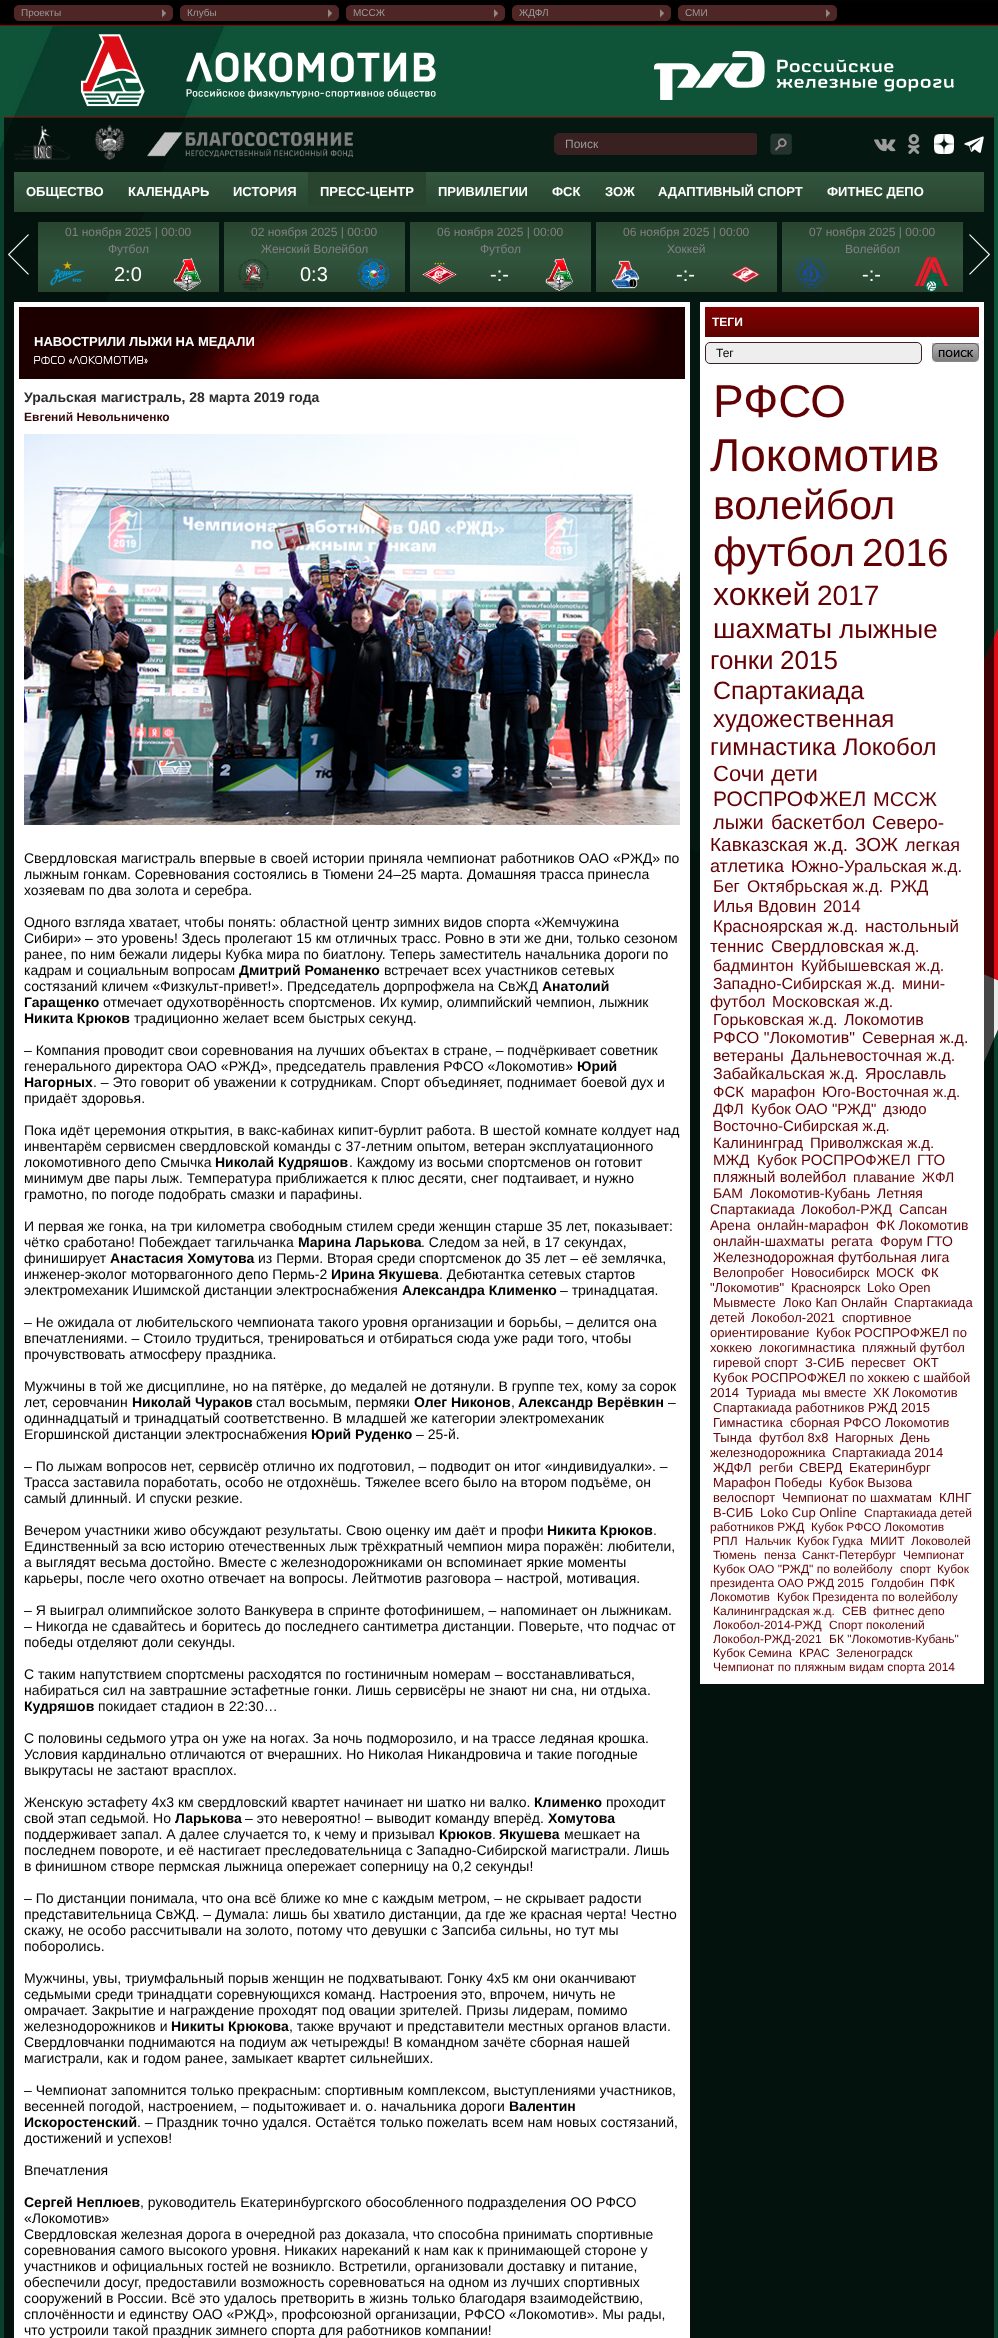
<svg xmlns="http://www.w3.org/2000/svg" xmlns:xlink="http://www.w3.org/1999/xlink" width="998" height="2338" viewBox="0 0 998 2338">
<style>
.cls-1{font:10px Liberation Sans;fill:#999999}
.cls-2{font:12px Liberation Sans;fill:#999999}
.cls-3{font:bold 13px Liberation Sans;fill:#ffffff}
.cls-4{font:12px Liberation Sans;fill:#808080}
.cls-5{font:20px Liberation Sans;fill:#ffffff}
.cls-6{font:bold 14px Liberation Sans;fill:#2d2d2d}
.cls-7{font:bold 12px Liberation Sans;fill:#320305}
.cls-8{font:14px Liberation Sans;fill:#000000}
.cls-9{font:bold 14px Liberation Sans;fill:#000000}
.cls-10{font:bold 12px Liberation Sans;fill:#ffffff}
.cls-11{font:12px Liberation Sans;fill:#000000}
.cls-12{font:46px Liberation Sans;fill:#620004}
.cls-13{font:41px Liberation Sans;fill:#620004}
.cls-14{font:39px Liberation Sans;fill:#620004}
.cls-15{font:32px Liberation Sans;fill:#620004}
.cls-16{font:28px Liberation Sans;fill:#620004}
.cls-17{font:26px Liberation Sans;fill:#620004}
.cls-18{font:25px Liberation Sans;fill:#620004}
.cls-19{font:24px Liberation Sans;fill:#620004}
.cls-20{font:22px Liberation Sans;fill:#620004}
.cls-21{font:21px Liberation Sans;fill:#620004}
.cls-22{font:20px Liberation Sans;fill:#620004}
.cls-23{font:19px Liberation Sans;fill:#620004}
.cls-24{font:18px Liberation Sans;fill:#620004}
.cls-25{font:17px Liberation Sans;fill:#620004}
.cls-26{font:16px Liberation Sans;fill:#620004}
.cls-27{font:15px Liberation Sans;fill:#620004}
.cls-28{font:14px Liberation Sans;fill:#620004}
.cls-29{font:13px Liberation Sans;fill:#620004}
.cls-30{font:12px Liberation Sans;fill:#620004}
</style>
<defs>
<clipPath id="clip1"><rect x="554" y="133" width="203" height="22"/></clipPath>
<linearGradient id="g1" gradientUnits="userSpaceOnUse" x1="499" y1="172" x2="499" y2="212"><stop offset="0" stop-color="#32553e"/><stop offset="1" stop-color="#28442f"/></linearGradient>
<linearGradient id="g2" gradientUnits="userSpaceOnUse" x1="129" y1="222" x2="129" y2="292"><stop offset="0" stop-color="#28442f"/><stop offset="0.5" stop-color="#32553e"/><stop offset="1" stop-color="#28442f"/></linearGradient>
<linearGradient id="g3" gradientUnits="userSpaceOnUse" x1="315" y1="222" x2="315" y2="292"><stop offset="0" stop-color="#28442f"/><stop offset="0.5" stop-color="#32553e"/><stop offset="1" stop-color="#28442f"/></linearGradient>
<linearGradient id="g4" gradientUnits="userSpaceOnUse" x1="501" y1="222" x2="501" y2="292"><stop offset="0" stop-color="#28442f"/><stop offset="0.5" stop-color="#32553e"/><stop offset="1" stop-color="#28442f"/></linearGradient>
<linearGradient id="g5" gradientUnits="userSpaceOnUse" x1="687" y1="222" x2="687" y2="292"><stop offset="0" stop-color="#28442f"/><stop offset="0.5" stop-color="#32553e"/><stop offset="1" stop-color="#28442f"/></linearGradient>
<linearGradient id="g6" gradientUnits="userSpaceOnUse" x1="873" y1="222" x2="873" y2="292"><stop offset="0" stop-color="#28442f"/><stop offset="0.5" stop-color="#32553e"/><stop offset="1" stop-color="#28442f"/></linearGradient>
<linearGradient id="g7" gradientUnits="userSpaceOnUse" x1="842" y1="307" x2="842" y2="337"><stop offset="0" stop-color="#830101"/><stop offset="1" stop-color="#5d0300"/></linearGradient>
</defs>
<rect width="100%" height="100%" fill="#0a3f2d"/>
<image xlink:href="image0.png" x="0" y="25" width="998" height="1175"/>
<image xlink:href="image1.png" x="0" y="0" width="998" height="26"/>
<image xlink:href="image2.png" x="4" y="26" width="990" height="146"/>
<image xlink:href="image3.png" x="14" y="5" width="159" height="16"/>
<image xlink:href="image3.png" x="180" y="5" width="159" height="16"/>
<image xlink:href="image3.png" x="346" y="5" width="159" height="16"/>
<image xlink:href="image3.png" x="512" y="5" width="159" height="16"/>
<image xlink:href="image3.png" x="678" y="5" width="159" height="16"/>
<image xlink:href="image4.png" x="80" y="34" width="65" height="73"/>
<image xlink:href="image5.png" x="186" y="52" width="250" height="47"/>
<image xlink:href="image6.png" x="654" y="51" width="300" height="49"/>
<image xlink:href="image7.png" x="14" y="125" width="56" height="35"/>
<image xlink:href="image8.png" x="94" y="125" width="31" height="35"/>
<image xlink:href="image9.png" x="147" y="132" width="206" height="25"/>
<g clip-path="url(#clip1)">
<rect fill="#392122" stroke="#392122" x="554.5" y="133.5" width="204" height="21" rx="4.5"/>
</g>
<image xlink:href="image10.png" x="770" y="133" width="22" height="22"/>
<image xlink:href="image11.png" x="874" y="138" width="22" height="14"/>
<image xlink:href="image12.png" x="908" y="134" width="12" height="20"/>
<image xlink:href="image13.png" x="934" y="134" width="20" height="20"/>
<image xlink:href="image14.png" x="964" y="136" width="20" height="17"/>
<rect fill="#000000" fill-opacity="0.7" x="4" y="172" width="990" height="2166"/>
<rect fill="url(#g1)" x="14" y="172" width="970" height="40"/>
<rect fill="#28442f" x="308" y="172" width="118" height="34"/>
<image xlink:href="image15.png" x="8" y="234" width="21" height="41"/>
<rect fill="url(#g2)" x="38" y="222" width="181" height="70"/>
<image xlink:href="image16.png" x="50" y="261" width="35" height="25"/>
<image xlink:href="image17.png" x="173" y="258" width="28" height="33"/>
<rect fill="url(#g3)" x="224" y="222" width="181" height="70"/>
<image xlink:href="image18.png" x="238" y="258" width="31" height="33"/>
<image xlink:href="image19.png" x="357" y="258" width="33" height="33"/>
<rect fill="url(#g4)" x="410" y="222" width="181" height="70"/>
<image xlink:href="image20.png" x="422" y="262" width="35" height="23"/>
<image xlink:href="image21.png" x="545" y="258" width="28" height="33"/>
<rect fill="url(#g5)" x="596" y="222" width="181" height="70"/>
<image xlink:href="image22.png" x="611" y="260" width="29" height="29"/>
<image xlink:href="image23.png" x="731" y="266" width="30" height="17"/>
<rect fill="url(#g6)" x="782" y="222" width="181" height="70"/>
<image xlink:href="image24.png" x="796" y="257" width="31" height="35"/>
<image xlink:href="image25.png" x="914" y="257" width="35" height="35"/>
<image xlink:href="image26.png" x="969" y="234" width="21" height="41"/>
<rect fill="#ffffff" x="14" y="302" width="676" height="2036"/>
<image xlink:href="image27.png" x="19" y="307" width="666" height="72"/>
<image xlink:href="image28.png" x="24" y="434" width="656" height="391"/>
<rect fill="#ffffff" x="700" y="302" width="284" height="1382"/>
<rect fill="url(#g7)" x="705" y="307" width="274" height="30"/>
<rect fill="#eeeeee" stroke="#392122" x="705.5" y="342.5" width="216" height="21" rx="4.5"/>
<image xlink:href="image29.png" x="932" y="343" width="47" height="19"/>
<text class="cls-1" x="21" y="16">Проекты</text>
<text class="cls-1" x="187" y="16">Клубы</text>
<text class="cls-1" x="353" y="16">МССЖ</text>
<text class="cls-1" x="519" y="16">ЖДФЛ</text>
<text class="cls-1" x="685" y="16">СМИ</text>
<text class="cls-2" x="565" y="148">Поиск</text>
<text class="cls-3" x="26" y="196">ОБЩЕСТВО</text>
<text class="cls-3" x="128" y="196">КАЛЕНДАРЬ</text>
<text class="cls-3" x="233" y="196">ИСТОРИЯ</text>
<text class="cls-3" x="320" y="196">ПРЕСС-ЦЕНТР</text>
<text class="cls-3" x="438" y="196">ПРИВИЛЕГИИ</text>
<text class="cls-3" x="552" y="196">ФСК</text>
<text class="cls-3" x="605" y="196">ЗОЖ</text>
<text class="cls-3" x="658" y="196">АДАПТИВНЫЙ СПОРТ</text>
<text class="cls-3" x="827" y="196">ФИТНЕС ДЕПО</text>
<text class="cls-4" x="65" y="236">01 ноября 2025 | 00:00</text>
<text class="cls-4" x="108" y="253">Футбол</text>
<text class="cls-5" x="114" y="281">2:0</text>
<text class="cls-4" x="251" y="236">02 ноября 2025 | 00:00</text>
<text class="cls-4" x="261" y="253">Женский Волейбол</text>
<text class="cls-5" x="300" y="281">0:3</text>
<text class="cls-4" x="437" y="236">06 ноября 2025 | 00:00</text>
<text class="cls-4" x="480" y="253">Футбол</text>
<text class="cls-5" x="490" y="281">-:-</text>
<text class="cls-4" x="623" y="236">06 ноября 2025 | 00:00</text>
<text class="cls-4" x="667" y="253">Хоккей</text>
<text class="cls-5" x="676" y="281">-:-</text>
<text class="cls-4" x="809" y="236">07 ноября 2025 | 00:00</text>
<text class="cls-4" x="845" y="253">Волейбол</text>
<text class="cls-5" x="862" y="281">-:-</text>
<text class="cls-3" x="34" y="346">НАВОСТРИЛИ ЛЫЖИ НА МЕДАЛИ</text>
<text class="cls-6" x="24" y="402">Уральская магистраль, 28 марта 2019 года</text>
<text class="cls-7" x="24" y="421">Евгений Невольниченко</text>
<text class="cls-8"><tspan x="24" y="863">Свердловская магистраль впервые в своей истории приняла чемпионат работников ОАО «РЖД» по</tspan><tspan x="24" y="879">лыжным гонкам. Соревнования состоялись в Тюмени 24–25 марта. Домашняя трасса принесла</tspan><tspan x="24" y="895">хозяевам по два золота и серебра.</tspan></text>
<text class="cls-8"><tspan x="24" y="927">Одного взгляда хватает, чтобы понять: областной центр зимних видов спорта «Жемчужина</tspan><tspan x="24" y="943">Сибири» – это уровень! Здесь пролегают 15 км отличных трасс. Ровно в эти же дни, только сезоном</tspan><tspan x="24" y="959">ранее, по ним бежали лидеры Кубка мира по биатлону. Теперь заместитель начальника дороги по</tspan><tspan x="24" y="975">кадрам и социальным вопросам</tspan></text>
<text class="cls-9" x="239" y="975">Дмитрий Романенко</text>
<text class="cls-8" x="384" y="975">встречает всех участников сетевых</text>
<text class="cls-8" x="24" y="991">состязаний кличем «Физкульт-привет!». Председатель дорпрофжела на СвЖД</text>
<text class="cls-9" x="542" y="991">Анатолий</text>
<text class="cls-9" x="24" y="1007">Гаращенко</text>
<text class="cls-8" x="103" y="1007">отмечает одухотворённость спортсменов. Их кумир, олимпийский чемпион, лыжник</text>
<text class="cls-9" x="24" y="1023">Никита Крюков</text>
<text class="cls-8" x="134" y="1023">традиционно желает всем быстрых секунд.</text>
<text class="cls-8"><tspan x="24" y="1055">– Компания проводит свои соревнования на лучших объектах в стране, – подчёркивает советник</tspan><tspan x="24" y="1071">генерального директора ОАО «РЖД», председатель правления РФСО «Локомотив»</tspan></text>
<text class="cls-9" x="577" y="1071">Юрий</text>
<text class="cls-9" x="24" y="1087">Нагорных</text>
<text class="cls-8" x="93" y="1087">. – Это говорит об уважении к сотрудникам. Спорт объединяет, поднимает боевой дух и</text>
<text class="cls-8" x="24" y="1103">придаёт здоровья.</text>
<text class="cls-8"><tspan x="24" y="1135">Пока идёт церемония открытия, в вакс-кабинах кипит-бурлит работа. В шестой комнате колдует над</tspan><tspan x="24" y="1151">инвентарём сервисмен свердловской команды с 37-летним опытом, ветеран эксплуатационного</tspan><tspan x="24" y="1167">локомотивного депо Смычка</tspan></text>
<text class="cls-9" x="215" y="1167">Николай Кудряшов</text>
<text class="cls-8" x="349" y="1167">. Каждому из восьми спортсменов он готовит</text>
<text class="cls-8"><tspan x="24" y="1183">минимум две пары лыж. Температура приближается к плюс десяти, снег подтаивает, и нужно</tspan><tspan x="24" y="1199">грамотно, по погоде подобрать смазки и парафины.</tspan></text>
<text class="cls-8"><tspan x="24" y="1231">И первая же гонка, на три километра свободным стилем среди женщин старше 35 лет, показывает:</tspan><tspan x="24" y="1247">чётко сработано! Побеждает тагильчанка</tspan></text>
<text class="cls-9" x="298" y="1247">Марина Ларькова</text>
<text class="cls-8" x="421" y="1247">. Следом за ней, в 17 секундах,</text>
<text class="cls-8" x="24" y="1263">финиширует</text>
<text class="cls-9" x="110" y="1263">Анастасия Хомутова</text>
<text class="cls-8" x="258" y="1263">из Перми. Вторая среди спортсменок до 35 лет – её землячка,</text>
<text class="cls-8" x="24" y="1279">инженер-эколог моторвагонного депо Пермь-2</text>
<text class="cls-9" x="331" y="1279">Ирина Якушева</text>
<text class="cls-8" x="439" y="1279">. Дебютантка сетевых стартов</text>
<text class="cls-8" x="24" y="1295">электромеханик Ишимской дистанции электроснабжения</text>
<text class="cls-9" x="402" y="1295">Александра Клименко</text>
<text class="cls-8" x="560" y="1295">– тринадцатая.</text>
<text class="cls-8"><tspan x="24" y="1327">– Не ожидала от любительского чемпионата такого уровня организации и борьбы, – делится она</tspan><tspan x="24" y="1343">впечатлениями. – Стоило трудиться, тренироваться и отбираться сюда уже ради того, чтобы</tspan><tspan x="24" y="1359">прочувствовать атмосферу праздника.</tspan></text>
<text class="cls-8"><tspan x="24" y="1391">Мужчины в той же дисциплине, но на пятёрке, до медалей не дотянули. В группе тех, кому за сорок</tspan><tspan x="24" y="1407">лет, серовчанин</tspan></text>
<text class="cls-9" x="132" y="1407">Николай Чураков</text>
<text class="cls-8" x="256" y="1407">стал восьмым, пермяки</text>
<text class="cls-9" x="414" y="1407">Олег Никонов</text>
<text class="cls-9" x="518" y="1407">Александр Верёвкин</text>
<text class="cls-8" x="668" y="1407">–</text>
<text class="cls-8" x="511" y="1407">,</text>
<text class="cls-8"><tspan x="24" y="1423">одиннадцатый и тринадцатый соответственно. В младшей же категории электромеханик</tspan><tspan x="24" y="1439">Егоршинской дистанции электроснабжения</tspan></text>
<text class="cls-9" x="311" y="1439">Юрий Руденко</text>
<text class="cls-8" x="416" y="1439">– 25-й.</text>
<text class="cls-8"><tspan x="24" y="1471">– По лыжам вопросов нет, сервисёр отлично их подготовил, – подводит он итог «индивидуалки». –</tspan><tspan x="24" y="1487">Трасса заставила поработать, особо не отдохнёшь. Тяжелее всего было на втором подъёме, он</tspan><tspan x="24" y="1503">самый длинный. И спуски резкие.</tspan></text>
<text class="cls-8" x="24" y="1535">Вечером участники живо обсуждают результаты. Свою оценку им даёт и профи</text>
<text class="cls-9" x="547" y="1535">Никита Крюков</text>
<text class="cls-8" x="653" y="1535">.</text>
<text class="cls-8"><tspan x="24" y="1551">Единственный за всю историю отечественных лыж трёхкратный чемпион мира поражён: любители,</tspan><tspan x="24" y="1567">а выглядят весьма достойно. Вместе с железнодорожниками он вспоминает яркие моменты</tspan><tspan x="24" y="1583">карьеры, после чего охотно отвечает на вопросы. Лейтмотив разговора – настрой, мотивация.</tspan></text>
<text class="cls-8"><tspan x="24" y="1615">– Я выиграл олимпийское золото Ванкувера в спринте фотофинишем, – напоминает он лыжникам.</tspan><tspan x="24" y="1631">– Никогда не сдавайтесь и боритесь до последнего сантиметра дистанции. Поверьте, что подчас от</tspan><tspan x="24" y="1647">победы отделяют доли секунды.</tspan></text>
<text class="cls-8"><tspan x="24" y="1679">С таким напутствием спортсмены расходятся по гостиничным номерам – восстанавливаться,</tspan><tspan x="24" y="1695">набираться сил на завтрашние эстафетные гонки. Лишь сервисёры не знают ни сна, ни отдыха.</tspan></text>
<text class="cls-9" x="24" y="1711">Кудряшов</text>
<text class="cls-8" x="98" y="1711">покидает стадион в 22:30…</text>
<text class="cls-8"><tspan x="24" y="1743">С половины седьмого утра он уже на ногах. За ночь подморозило, и на трассе ледяная крошка.</tspan><tspan x="24" y="1759">Условия кардинально отличаются от вчерашних. Но Николая Никандровича и такие погодные</tspan><tspan x="24" y="1775">выкрутасы не застают врасплох.</tspan></text>
<text class="cls-8" x="24" y="1807">Женскую эстафету 4х3 км свердловский квартет начинает ни шатко ни валко.</text>
<text class="cls-9" x="534" y="1807">Клименко</text>
<text class="cls-8" x="606" y="1807">проходит</text>
<text class="cls-8" x="24" y="1823">свой этап седьмой. Но</text>
<text class="cls-9" x="175" y="1823">Ларькова</text>
<text class="cls-8" x="245" y="1823">– это невероятно! – выводит команду вперёд.</text>
<text class="cls-9" x="548" y="1823">Хомутова</text>
<text class="cls-8" x="24" y="1839">поддерживает запал. А далее случается то, к чему и призывал</text>
<text class="cls-9" x="439" y="1839">Крюков</text>
<text class="cls-8" x="492" y="1839">.</text>
<text class="cls-9" x="499" y="1839">Якушева</text>
<text class="cls-8" x="564" y="1839">мешкает на</text>
<text class="cls-8"><tspan x="24" y="1855">последнем повороте, и её настигает преследовательница с Западно-Сибирской магистрали. Лишь</tspan><tspan x="24" y="1871">в финишном створе пермская лыжница опережает соперницу на 0,2 секунды!</tspan></text>
<text class="cls-8"><tspan x="24" y="1903">– По дистанции понимала, что она всё ближе ко мне с каждым метром, – не скрывает радости</tspan><tspan x="24" y="1919">представительница СвЖД. – Думала: лишь бы хватило дистанции, да где же красная черта! Честно</tspan><tspan x="24" y="1935">скажу, не особо рассчитывали на золото, потому что девушки с Запсиба сильны, но тут мы</tspan><tspan x="24" y="1951">поборолись.</tspan></text>
<text class="cls-8"><tspan x="24" y="1983">Мужчины, увы, триумфальный порыв женщин не подхватывают. Гонку 4х5 км они оканчивают</tspan><tspan x="24" y="1999">седьмыми среди тринадцати соревнующихся команд. Настроения это, впрочем, ничуть не</tspan><tspan x="24" y="2015">омрачает. Закрытие и награждение проходят под овации зрителей. Призы лидерам, помимо</tspan><tspan x="24" y="2031">железнодорожников и</tspan></text>
<text class="cls-9" x="171" y="2031">Никиты Крюкова</text>
<text class="cls-8" x="289" y="2031">, также вручают и представители местных органов власти.</text>
<text class="cls-8"><tspan x="24" y="2047">Свердловчанки поднимаются на подиум аж четырежды! В командном зачёте сборная нашей</tspan><tspan x="24" y="2063">магистрали, как и годом ранее, замыкает квартет сильнейших.</tspan></text>
<text class="cls-8"><tspan x="24" y="2095">– Чемпионат запомнится только прекрасным: спортивным комплексом, выступлениями участников,</tspan><tspan x="24" y="2111">весенней погодой, настроением, – подытоживает и. о. начальника дороги</tspan></text>
<text class="cls-9" x="509" y="2111">Валентин</text>
<text class="cls-9" x="24" y="2127">Искоростенский</text>
<text class="cls-8" x="137" y="2127">. – Праздник точно удался. Остаётся только пожелать всем нам новых состязаний,</text>
<text class="cls-8" x="24" y="2143">достижений и успехов!</text>
<text class="cls-8" x="24" y="2175">Впечатления</text>
<text class="cls-9" x="24" y="2207">Сергей Неплюев</text>
<text class="cls-8" x="140" y="2207">, руководитель Екатеринбургского обособленного подразделения ОО РФСО</text>
<text class="cls-8"><tspan x="24" y="2223">«Локомотив»</tspan><tspan x="24" y="2239">Свердловская железная дорога в очередной раз доказала, что способна принимать спортивные</tspan><tspan x="24" y="2255">соревнования самого высокого уровня. Никаких нареканий к нам как к принимающей стороне у</tspan><tspan x="24" y="2271">участников и официальных гостей не возникло. Встретили, организовали доставку и питание,</tspan><tspan x="24" y="2287">обеспечили досуг, предоставили возможность соревноваться на одном из лучших спортивных</tspan><tspan x="24" y="2303">сооружений в России. Всё это удалось претворить в жизнь только благодаря взаимодействию,</tspan><tspan x="24" y="2319">сплочённости и единству ОАО «РЖД», профсоюзной организации, РФСО «Локомотив». Мы рады,</tspan><tspan x="24" y="2335">что устроили такой праздник зимнего спорта для работников компании!</tspan></text>
<text class="cls-10" x="712" y="326">ТЕГИ</text>
<text class="cls-11" x="716" y="357">Тег</text>
<text class="cls-12" x="713" y="417">РФСО</text>
<text class="cls-12" x="710" y="471">Локомотив</text>
<text class="cls-13"><tspan x="713" y="519">волейбол</tspan><tspan x="713" y="566">футбол</tspan></text>
<text class="cls-14" x="862" y="566">2016</text>
<text class="cls-15" x="713" y="605">хоккей</text>
<text class="cls-16" x="817" y="605">2017</text>
<text class="cls-16" x="713" y="638">шахматы</text>
<text class="cls-17" x="839" y="638">лыжные</text>
<text class="cls-17" x="710" y="669">гонки</text>
<text class="cls-17" x="780" y="669">2015</text>
<text class="cls-18" x="713" y="699">Спартакиада</text>
<text class="cls-19" x="713" y="727">художественная</text>
<text class="cls-19" x="710" y="755">гимнастика Локобол</text>
<text class="cls-20" x="713" y="781">Сочи</text>
<text class="cls-20" x="771" y="781">дети</text>
<text class="cls-21" x="713" y="806">РОСПРОФЖЕЛ</text>
<text class="cls-22" x="873" y="806">МССЖ</text>
<text class="cls-22" x="713" y="829">лыжи</text>
<text class="cls-22" x="771" y="829">баскетбол</text>
<text class="cls-23" x="872" y="829">Северо-</text>
<text class="cls-23" x="710" y="851">Кавказская ж.д.</text>
<text class="cls-23" x="855" y="851">ЗОЖ</text>
<text class="cls-24" x="905" y="851">легкая</text>
<text class="cls-24" x="710" y="872">атлетика</text>
<text class="cls-25" x="791" y="872">Южно-Уральская ж.д.</text>
<text class="cls-25" x="713" y="892">Бег</text>
<text class="cls-25" x="747" y="892">Октябрьская ж.д.</text>
<text class="cls-25" x="890" y="892">РЖД</text>
<text class="cls-25" x="713" y="912">Илья Вдовин</text>
<text class="cls-25" x="823" y="912">2014</text>
<text class="cls-25" x="713" y="932">Красноярская ж.д.</text>
<text class="cls-25" x="865" y="932">настольный</text>
<text class="cls-25" x="710" y="952">теннис</text>
<text class="cls-25" x="771" y="952">Свердловская ж.д.</text>
<text class="cls-26" x="713" y="971">бадминтон</text>
<text class="cls-26" x="801" y="971">Куйбышевская ж.д.</text>
<text class="cls-26" x="713" y="989">Западно-Сибирская ж.д.</text>
<text class="cls-26" x="902" y="989">мини-</text>
<text class="cls-26" x="710" y="1007">футбол</text>
<text class="cls-26" x="772" y="1007">Московская ж.д.</text>
<text class="cls-26" x="713" y="1025">Горьковская ж.д.</text>
<text class="cls-26" x="844" y="1025">Локомотив</text>
<text class="cls-26" x="713" y="1043">РФСО "Локомотив"</text>
<text class="cls-26" x="862" y="1043">Северная ж.д.</text>
<text class="cls-26" x="713" y="1061">ветераны</text>
<text class="cls-26" x="791" y="1061">Дальневосточная ж.д.</text>
<text class="cls-26" x="713" y="1079">Забайкальская ж.д.</text>
<text class="cls-26" x="865" y="1079">Ярославль</text>
<text class="cls-27" x="713" y="1097">ФСК</text>
<text class="cls-27" x="751" y="1097">марафон</text>
<text class="cls-27" x="822" y="1097">Юго-Восточная ж.д.</text>
<text class="cls-27" x="713" y="1114">ДФЛ</text>
<text class="cls-27" x="751" y="1114">Кубок ОАО "РЖД"</text>
<text class="cls-27" x="883" y="1114">дзюдо</text>
<text class="cls-27"><tspan x="713" y="1131">Восточно-Сибирская ж.д.</tspan><tspan x="713" y="1148">Калининград</tspan></text>
<text class="cls-27" x="810" y="1148">Приволжская ж.д.</text>
<text class="cls-27" x="713" y="1165">МЖД</text>
<text class="cls-27" x="757" y="1165">Кубок РОСПРОФЖЕЛ</text>
<text class="cls-27" x="917" y="1165">ГТО</text>
<text class="cls-27" x="713" y="1182">пляжный волейбол</text>
<text class="cls-28" x="853" y="1182">плавание</text>
<text class="cls-28" x="922" y="1182">ЖФЛ</text>
<text class="cls-28" x="713" y="1198">БАМ</text>
<text class="cls-28" x="750" y="1198">Локомотив-Кубань</text>
<text class="cls-28" x="877" y="1198">Летняя</text>
<text class="cls-28" x="710" y="1214">Спартакиада</text>
<text class="cls-28" x="801" y="1214">Локобол-РЖД</text>
<text class="cls-28" x="899" y="1214">Сапсан</text>
<text class="cls-28" x="710" y="1230">Арена</text>
<text class="cls-28" x="757" y="1230">онлайн-марафон</text>
<text class="cls-28" x="876" y="1230">ФК Локомотив</text>
<text class="cls-28" x="713" y="1246">онлайн-шахматы</text>
<text class="cls-28" x="831" y="1246">регата</text>
<text class="cls-28" x="880" y="1246">Форум ГТО</text>
<text class="cls-28" x="713" y="1262">Железнодорожная футбольная лига</text>
<text class="cls-29" x="713" y="1277">Велопробег</text>
<text class="cls-29" x="791" y="1277">Новосибирск</text>
<text class="cls-29" x="876" y="1277">МОСК</text>
<text class="cls-29" x="921" y="1277">ФК</text>
<text class="cls-29" x="710" y="1292">"Локомотив"</text>
<text class="cls-29" x="791" y="1292">Красноярск</text>
<text class="cls-29" x="867" y="1292">Loko Open</text>
<text class="cls-29" x="713" y="1307">Мывместе</text>
<text class="cls-29" x="783" y="1307">Локо Кап Онлайн</text>
<text class="cls-29" x="894" y="1307">Спартакиада</text>
<text class="cls-29" x="710" y="1322">детей</text>
<text class="cls-29" x="751" y="1322">Локобол-2021</text>
<text class="cls-29" x="842" y="1322">спортивное</text>
<text class="cls-29" x="710" y="1337">ориентирование</text>
<text class="cls-29" x="816" y="1337">Кубок РОСПРОФЖЕЛ по</text>
<text class="cls-29" x="710" y="1352">хоккею</text>
<text class="cls-29" x="759" y="1352">локогимнастика</text>
<text class="cls-29" x="862" y="1352">пляжный футбол</text>
<text class="cls-29" x="713" y="1367">гиревой спорт</text>
<text class="cls-29" x="805" y="1367">З-СИБ</text>
<text class="cls-29" x="851" y="1367">пересвет</text>
<text class="cls-29" x="913" y="1367">ОКТ</text>
<text class="cls-29" x="713" y="1382">Кубок РОСПРОФЖЕЛ по хоккею с шайбой</text>
<text class="cls-29" x="710" y="1397">2014</text>
<text class="cls-29" x="746" y="1397">Туриада</text>
<text class="cls-29" x="802" y="1397">мы вместе</text>
<text class="cls-29" x="873" y="1397">ХК Локомотив</text>
<text class="cls-29"><tspan x="713" y="1412">Спартакиада работников РЖД 2015</tspan><tspan x="713" y="1427">Гимнастика</tspan></text>
<text class="cls-29" x="790" y="1427">сборная РФСО Локомотив</text>
<text class="cls-29" x="713" y="1442">Тында</text>
<text class="cls-29" x="759" y="1442">футбол 8х8</text>
<text class="cls-29" x="835" y="1442">Нагорных</text>
<text class="cls-29" x="900" y="1442">День</text>
<text class="cls-29" x="710" y="1457">железнодорожника</text>
<text class="cls-29" x="832" y="1457">Спартакиада 2014</text>
<text class="cls-29" x="713" y="1472">ЖДФЛ</text>
<text class="cls-29" x="759" y="1472">регби</text>
<text class="cls-29" x="799" y="1472">СВЕРД</text>
<text class="cls-29" x="849" y="1472">Екатеринбург</text>
<text class="cls-29" x="713" y="1487">Марафон Победы</text>
<text class="cls-29" x="829" y="1487">Кубок Вызова</text>
<text class="cls-29" x="713" y="1502">велоспорт</text>
<text class="cls-29" x="782" y="1502">Чемпионат по шахматам</text>
<text class="cls-29" x="939" y="1502">КЛНГ</text>
<text class="cls-29" x="713" y="1517">В-СИБ</text>
<text class="cls-29" x="760" y="1517">Loko Cup Online</text>
<text class="cls-30" x="864" y="1517">Спартакиада детей</text>
<text class="cls-30" x="710" y="1531">работников РЖД</text>
<text class="cls-30" x="811" y="1531">Кубок РФСО Локомотив</text>
<text class="cls-30" x="713" y="1545">РПЛ</text>
<text class="cls-30" x="745" y="1545">Нальчик</text>
<text class="cls-30" x="797" y="1545">Кубок Гудка</text>
<text class="cls-30" x="870" y="1545">МИИТ</text>
<text class="cls-30" x="911" y="1545">Локоволей</text>
<text class="cls-30" x="713" y="1559">Тюмень</text>
<text class="cls-30" x="764" y="1559">пенза</text>
<text class="cls-30" x="802" y="1559">Санкт-Петербург</text>
<text class="cls-30" x="903" y="1559">Чемпионат</text>
<text class="cls-30" x="713" y="1573">Кубок ОАО "РЖД" по волейболу</text>
<text class="cls-30" x="900" y="1573">спорт</text>
<text class="cls-30" x="937" y="1573">Кубок</text>
<text class="cls-30" x="710" y="1587">президента ОАО РЖД 2015</text>
<text class="cls-30" x="871" y="1587">Голдобин</text>
<text class="cls-30" x="930" y="1587">ПФК</text>
<text class="cls-30" x="710" y="1601">Локомотив</text>
<text class="cls-30" x="777" y="1601">Кубок Президента по волейболу</text>
<text class="cls-30" x="713" y="1615">Калининградская ж.д.</text>
<text class="cls-30" x="842" y="1615">СЕВ</text>
<text class="cls-30" x="873" y="1615">фитнес депо</text>
<text class="cls-30" x="713" y="1629">Локобол-2014-РЖД</text>
<text class="cls-30" x="829" y="1629">Спорт поколений</text>
<text class="cls-30" x="713" y="1643">Локобол-РЖД-2021</text>
<text class="cls-30" x="829" y="1643">БК "Локомотив-Кубань"</text>
<text class="cls-30" x="713" y="1657">Кубок Семина</text>
<text class="cls-30" x="799" y="1657">КРАС</text>
<text class="cls-30" x="836" y="1657">Зеленоградск</text>
<text class="cls-30" x="713" y="1671">Чемпионат по пляжным видам спорта 2014</text>
</svg>
